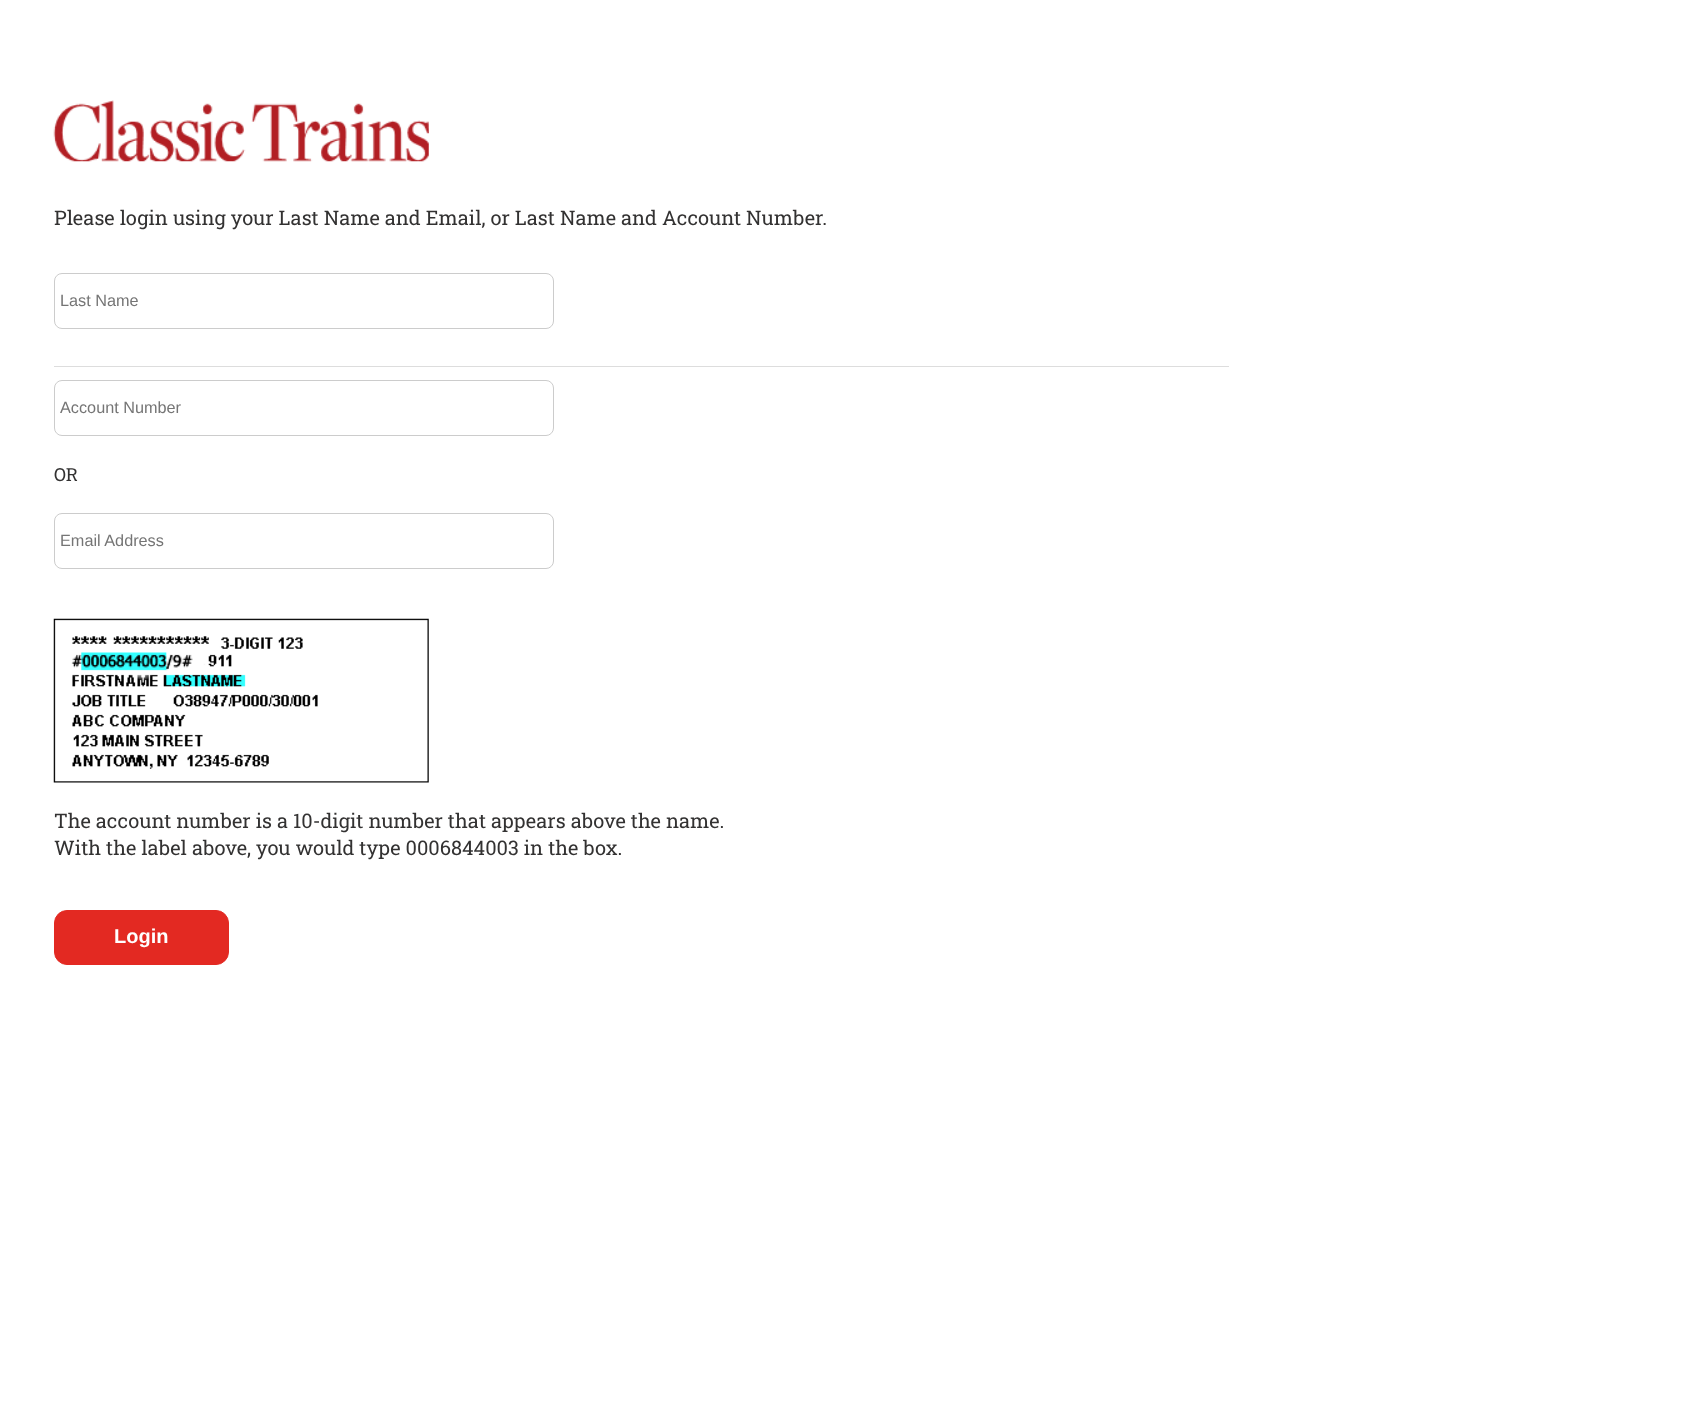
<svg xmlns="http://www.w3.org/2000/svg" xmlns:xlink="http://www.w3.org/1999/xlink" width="1707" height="1401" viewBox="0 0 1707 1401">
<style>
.cls-1{font:20px Roboto Slab;fill:#333232}
.cls-2{font:16.25px Liberation Sans;fill:#757575}
.cls-3{font:18px Roboto Slab;fill:#333232}
.cls-4{font:bold 20px Liberation Sans;fill:#ffffff}
</style>
<rect width="100%" height="100%" fill="#ffffff"/>
<image xlink:href="image0.png" x="53" y="100" width="376" height="62"/>
<rect fill="none" stroke="#cccccc" x="54.5" y="273.5" width="499" height="55" rx="7.5"/>
<rect fill="#dddddd" x="54" y="366" width="1175" height="1"/>
<rect fill="none" stroke="#cccccc" x="54.5" y="380.5" width="499" height="55" rx="7.5"/>
<rect fill="none" stroke="#cccccc" x="54.5" y="513.5" width="499" height="55" rx="7.5"/>
<image xlink:href="image1.png" x="53" y="618" width="376" height="165"/>
<rect fill="#e32922" stroke="#e32922" x="54.5" y="910.5" width="174" height="54" rx="12.5"/>
<text class="cls-1" x="54" y="225">Please login using your Last Name and Email, or Last Name and Account Number.</text>
<text class="cls-2" x="60" y="306">Last Name</text>
<text class="cls-2" x="60" y="413">Account Number</text>
<text class="cls-3" x="54" y="481">OR</text>
<text class="cls-2" x="60" y="546">Email Address</text>
<text class="cls-1"><tspan x="54" y="828">The account number is a 10-digit number that appears above the name.</tspan><tspan x="54" y="855">With the label above, you would type 0006844003 in the box.</tspan></text>
<text class="cls-4" x="114" y="943">Login</text>
</svg>
